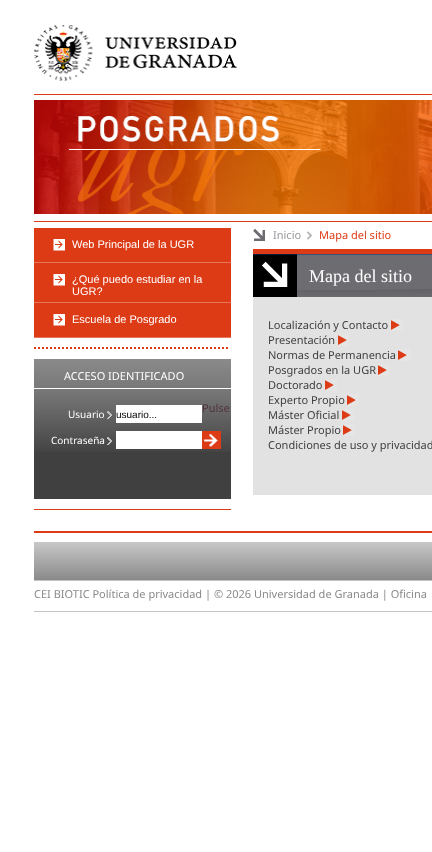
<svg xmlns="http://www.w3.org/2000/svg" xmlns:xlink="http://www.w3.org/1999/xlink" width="432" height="852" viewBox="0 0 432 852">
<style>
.cls-1{font:11px Noto Sans;fill:#99989c}
.cls-2{font:11px Noto Sans;fill:#dd3b15}
.cls-3{font:11px Liberation Sans;fill:#ffffff}
.cls-4{font:11px Noto Sans;fill:#ffffff}
.cls-5{font:11px Noto Sans;fill:#543342}
.cls-6{font:10px Noto Sans;fill:#ffffff}
.cls-7{font:10px Liberation Sans;fill:#000000}
.cls-8{font:18px Liberation Serif;fill:#ffffff}
.cls-9{font:11px Noto Sans;fill:#404040}
.cls-10{font:11px Noto Sans;fill:#8a8a8a}
</style>
<rect width="100%" height="100%" fill="#ffffff"/>
<image xlink:href="image0.png" x="34" y="25" width="203" height="56"/>
<rect fill="#dd3b15" x="34" y="94" width="398" height="1"/>
<image xlink:href="image1.png" x="34" y="100" width="398" height="114"/>
<rect fill="#dd3b15" x="34" y="221" width="398" height="1"/>
<image xlink:href="image2.png" x="253" y="229" width="12" height="12"/>
<image xlink:href="image3.png" x="307" y="231" width="5" height="9"/>
<rect fill="#dd3b15" x="34" y="509" width="197" height="1"/>
<path fill="none" stroke="#dd3b15" stroke-width="2" stroke-dasharray="2 2" d="M34 348H230"/>
<rect fill="#dd3b15" x="34" y="228" width="197" height="34"/>
<image xlink:href="image4.png" x="53" y="239" width="12" height="12"/>
<rect fill="#e7765c" x="34" y="262" width="197" height="1"/>
<rect fill="#dd3b15" x="34" y="263" width="197" height="39"/>
<image xlink:href="image4.png" x="53" y="274" width="12" height="12"/>
<rect fill="#e7765c" x="34" y="302" width="197" height="1"/>
<rect fill="#dd3b15" x="34" y="303" width="197" height="34"/>
<image xlink:href="image4.png" x="53" y="314" width="12" height="12"/>
<rect fill="#e7765c" x="34" y="337" width="197" height="1"/>
<rect fill="#404040" x="34" y="452" width="197" height="47"/>
<image xlink:href="image5.png" x="34" y="359" width="197" height="93"/>
<rect fill="#ffffff" x="34" y="388" width="197" height="1"/>
<image xlink:href="image6.png" x="107" y="411" width="5" height="8"/>
<rect fill="#ffffff" x="116" y="405" width="86" height="18"/>
<image xlink:href="image7.png" x="107" y="437" width="5" height="8"/>
<rect fill="#ffffff" x="116" y="431" width="86" height="18"/>
<image xlink:href="image8.png" x="202" y="431" width="19" height="18"/>
<rect fill="#e2e2e2" x="253" y="297" width="179" height="198"/>
<image xlink:href="image9.png" x="253" y="254" width="179" height="43"/>
<rect fill="#dd3b15" x="253" y="249" width="179" height="5"/>
<rect fill="#e5e5e5" x="391" y="319" width="12" height="12"/>
<image xlink:href="image10.png" x="391" y="320" width="9" height="10"/>
<rect fill="#e5e5e5" x="338" y="334" width="11" height="12"/>
<image xlink:href="image10.png" x="338" y="335" width="9" height="10"/>
<rect fill="#e5e5e5" x="398" y="349" width="12" height="12"/>
<image xlink:href="image10.png" x="398" y="350" width="9" height="10"/>
<rect fill="#e5e5e5" x="378" y="364" width="12" height="12"/>
<image xlink:href="image10.png" x="378" y="365" width="9" height="10"/>
<rect fill="#e5e5e5" x="325" y="379" width="12" height="12"/>
<image xlink:href="image10.png" x="325" y="380" width="9" height="10"/>
<rect fill="#e5e5e5" x="347" y="394" width="12" height="12"/>
<image xlink:href="image10.png" x="347" y="395" width="9" height="10"/>
<rect fill="#e5e5e5" x="342" y="409" width="12" height="12"/>
<image xlink:href="image10.png" x="342" y="410" width="9" height="10"/>
<rect fill="#e5e5e5" x="343" y="424" width="12" height="12"/>
<image xlink:href="image10.png" x="343" y="425" width="9" height="10"/>
<image xlink:href="image11.png" x="34" y="542" width="398" height="38"/>
<rect fill="#db3c15" x="34" y="531" width="398" height="2"/>
<rect fill="#c4c4c4" x="34" y="580" width="398" height="1"/>
<rect fill="#c4c4c4" x="34" y="611" width="398" height="1"/>
<text class="cls-1" x="273" y="239">Inicio</text>
<text class="cls-2" x="319" y="239">Mapa del sitio</text>
<text class="cls-3" x="72" y="248">Web Principal de la UGR</text>
<text class="cls-3"><tspan x="72" y="283">¿Qué puedo estudiar en la</tspan><tspan x="72" y="295">UGR?</tspan></text>
<text class="cls-3" x="72" y="323">Escuela de Posgrado</text>
<text class="cls-4" x="64" y="380">ACCESO IDENTIFICADO</text>
<text class="cls-5" x="202" y="412">Pulse</text>
<text class="cls-6" x="68" y="418">Usuario</text>
<text class="cls-7" x="116" y="418">usuario...</text>
<text class="cls-6" x="51" y="444">Contraseña</text>
<text class="cls-8" x="309" y="282">Mapa del sitio</text>
<text class="cls-9"><tspan x="268" y="329">Localización y Contacto</tspan><tspan x="268" y="344">Presentación</tspan><tspan x="268" y="359">Normas de Permanencia</tspan><tspan x="268" y="374">Posgrados en la UGR</tspan><tspan x="268" y="389">Doctorado</tspan><tspan x="268" y="404">Experto Propio</tspan><tspan x="268" y="419">Máster Oficial</tspan><tspan x="268" y="434">Máster Propio</tspan><tspan x="268" y="449">Condiciones de uso y privacidad</tspan></text>
<text class="cls-10" x="34" y="598">CEI BIOTIC Política de privacidad | © 2026 Universidad de Granada | Oficina</text>
</svg>
